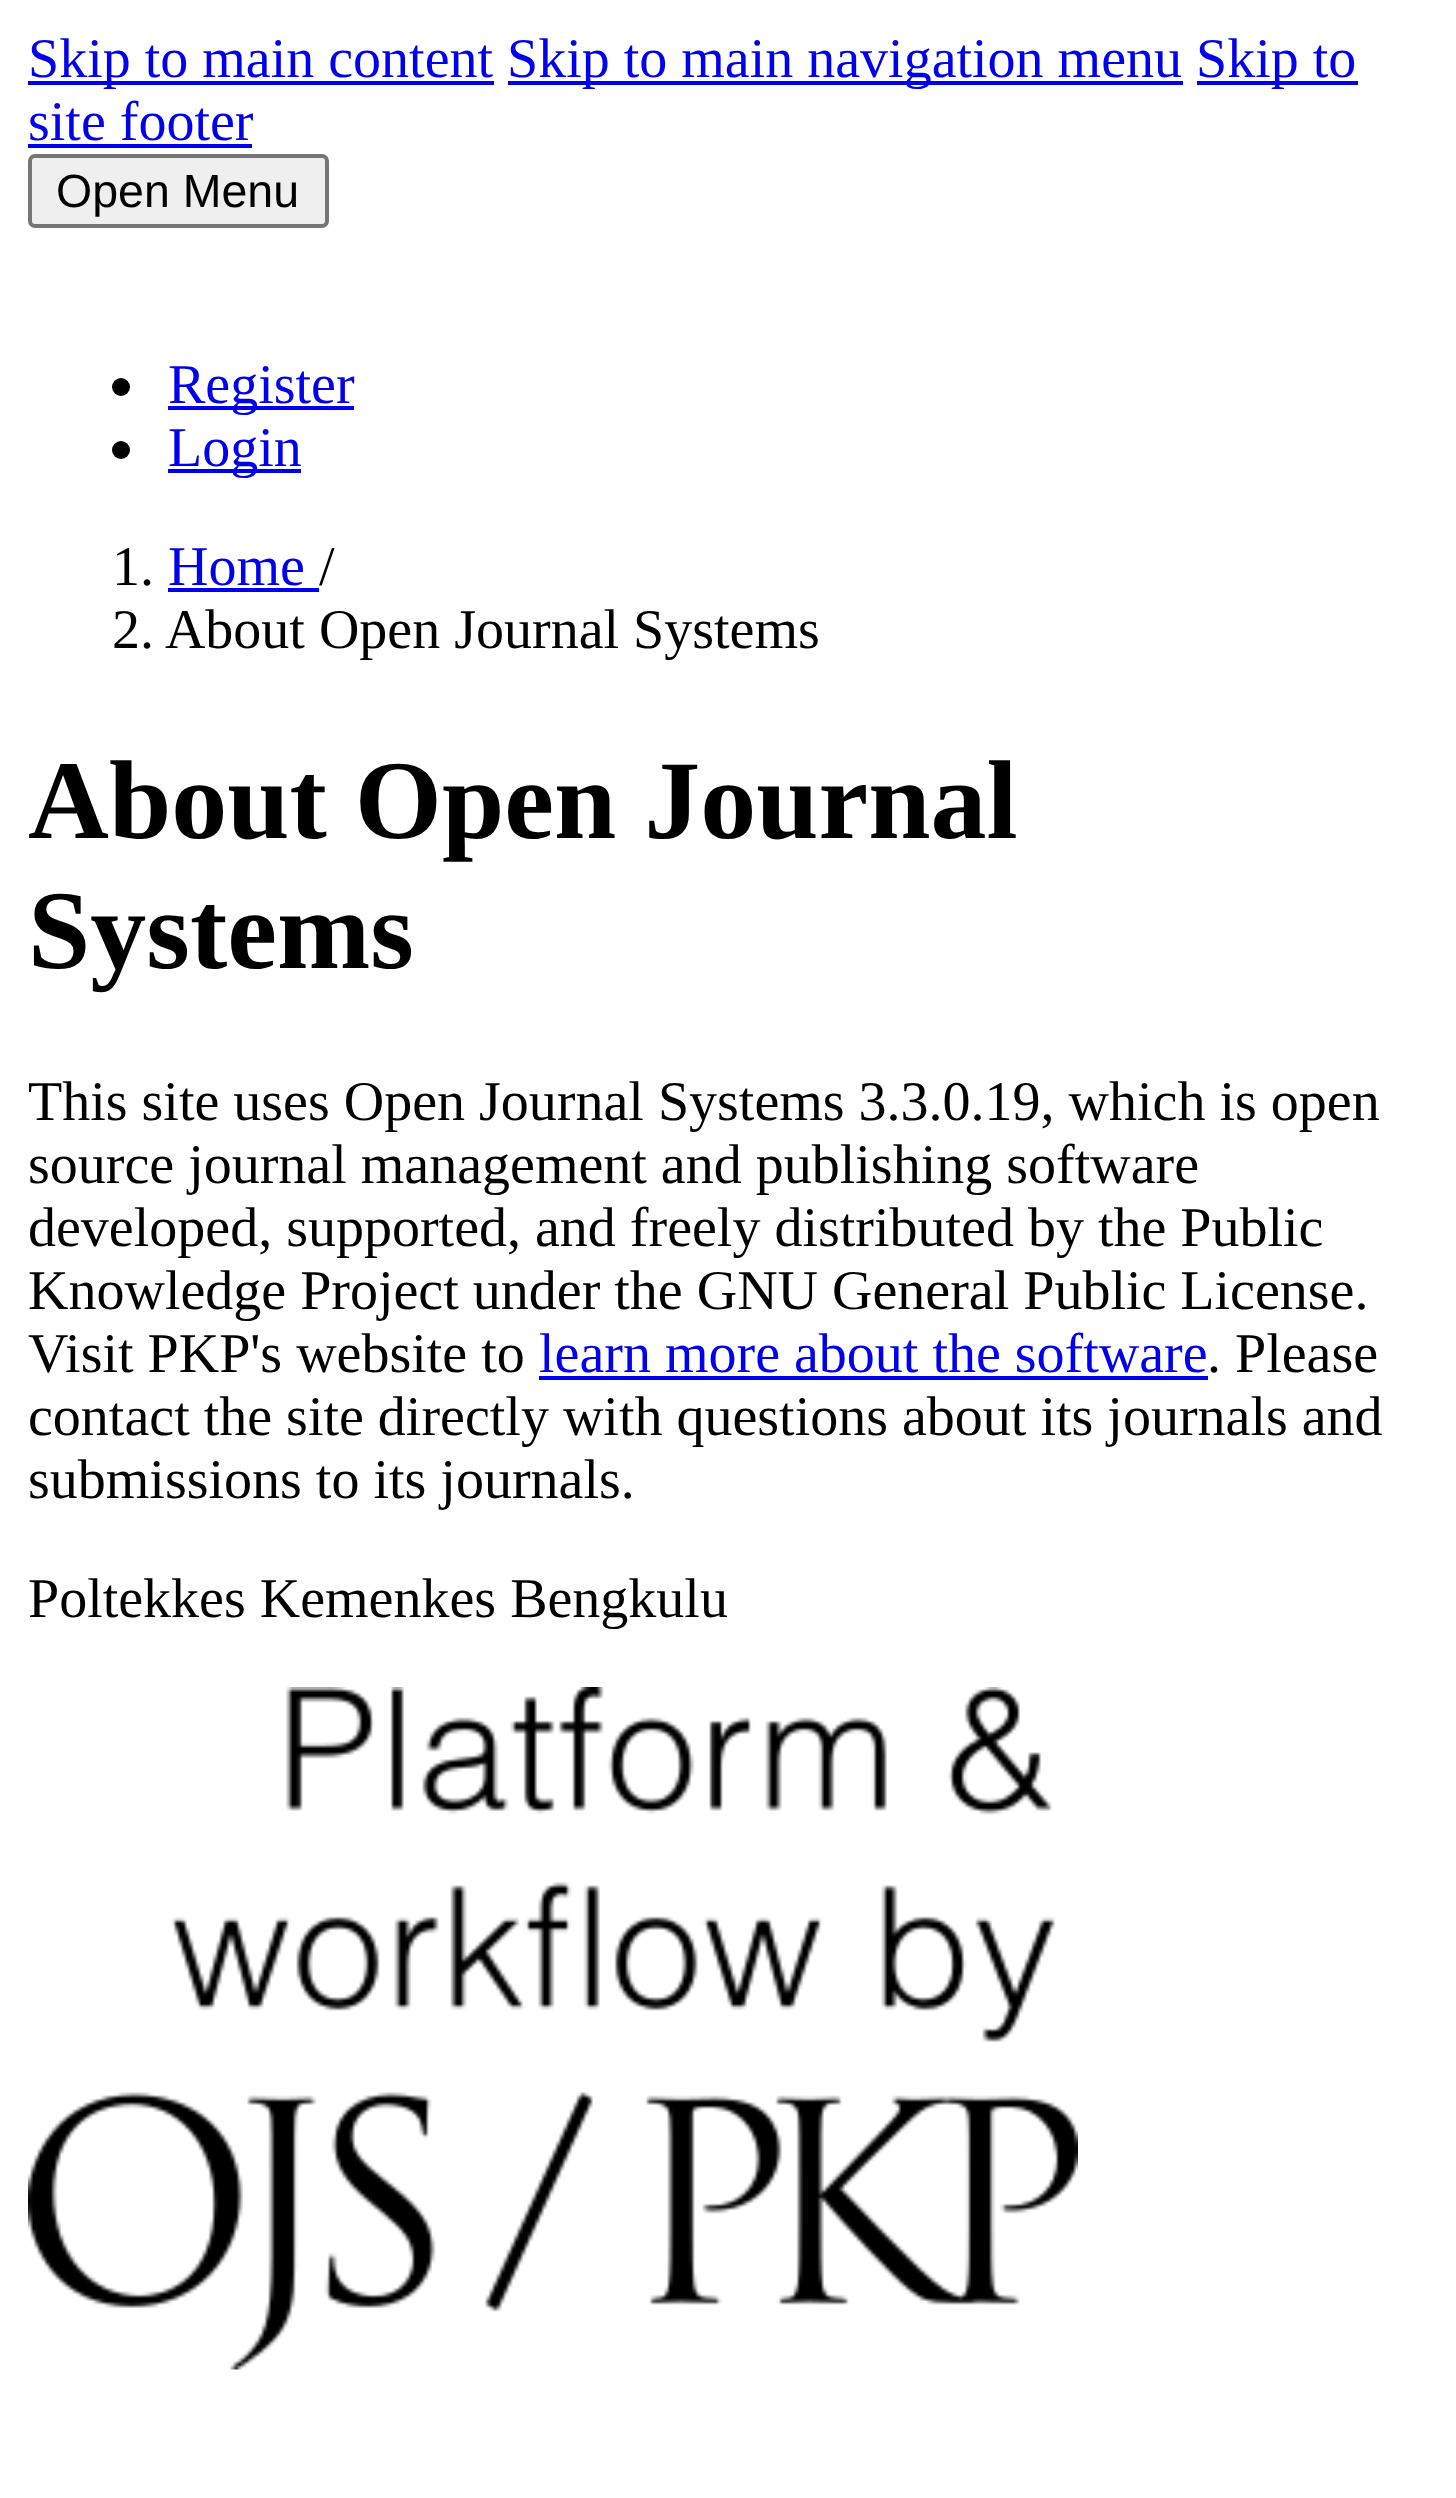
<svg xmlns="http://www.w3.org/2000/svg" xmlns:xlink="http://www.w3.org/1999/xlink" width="1456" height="2498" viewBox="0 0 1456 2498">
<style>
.cls-1{font:56px Liberation Serif;fill:#0000ee}
.cls-2{font:46.5px Liberation Sans;fill:#000000}
.cls-3{font:56px Liberation Serif;fill:#000000}
.cls-4{font:bold 112px Liberation Serif;fill:#000000}
</style>
<rect width="100%" height="100%" fill="#ffffff"/>
<rect fill="#0000ee" x="28" y="81" width="466" height="4"/>
<rect fill="#0000ee" x="508" y="81" width="675" height="4"/>
<rect fill="#0000ee" x="1197" y="81" width="161" height="4"/>
<rect fill="#0000ee" x="28" y="144" width="224" height="4"/>
<rect fill="#efefef" stroke="#767676" stroke-width="4" x="30" y="156" width="297" height="70" rx="5"/>
<circle fill="#000000" cx="121" cy="387" r="9"/>
<rect fill="#0000ee" x="168" y="406" width="186" height="4"/>
<circle fill="#000000" cx="121" cy="450" r="9"/>
<rect fill="#0000ee" x="168" y="469" width="133" height="4"/>
<rect fill="#0000ee" x="168" y="588" width="151" height="4"/>
<rect fill="#0000ee" x="539" y="1376" width="669" height="4"/>
<image xlink:href="image0.png" x="28" y="1687" width="1050" height="683"/>
<text class="cls-1" x="28" y="77">Skip to main content</text>
<text class="cls-1" x="507" y="77">Skip to main navigation menu</text>
<text class="cls-1" x="1196" y="77">Skip to</text>
<text class="cls-1" x="28" y="140">site footer</text>
<text class="cls-2" x="56" y="207">Open Menu</text>
<text class="cls-1"><tspan x="168" y="403">Register</tspan><tspan x="168" y="466">Login</tspan></text>
<text class="cls-3" x="112" y="585">1.</text>
<text class="cls-1" x="168" y="585">Home</text>
<text class="cls-3" x="319" y="585">/</text>
<text class="cls-3" x="112" y="648">2. About Open Journal Systems</text>
<text class="cls-4"><tspan x="28" y="838">About Open Journal</tspan><tspan x="28" y="968">Systems</tspan></text>
<text class="cls-3"><tspan x="28" y="1120">This site uses Open Journal Systems 3.3.0.19, which is open</tspan><tspan x="28" y="1183">source journal management and publishing software</tspan><tspan x="28" y="1246">developed, supported, and freely distributed by the Public</tspan><tspan x="28" y="1309">Knowledge Project under the GNU General Public License.</tspan><tspan x="28" y="1372">Visit PKP's website to</tspan></text>
<text class="cls-1" x="539" y="1372">learn more about the software</text>
<text class="cls-3" x="1207" y="1372">. Please</text>
<text class="cls-3"><tspan x="28" y="1435">contact the site directly with questions about its journals and</tspan><tspan x="28" y="1498">submissions to its journals.</tspan></text>
<text class="cls-3" x="28" y="1617">Poltekkes Kemenkes Bengkulu</text>
</svg>
